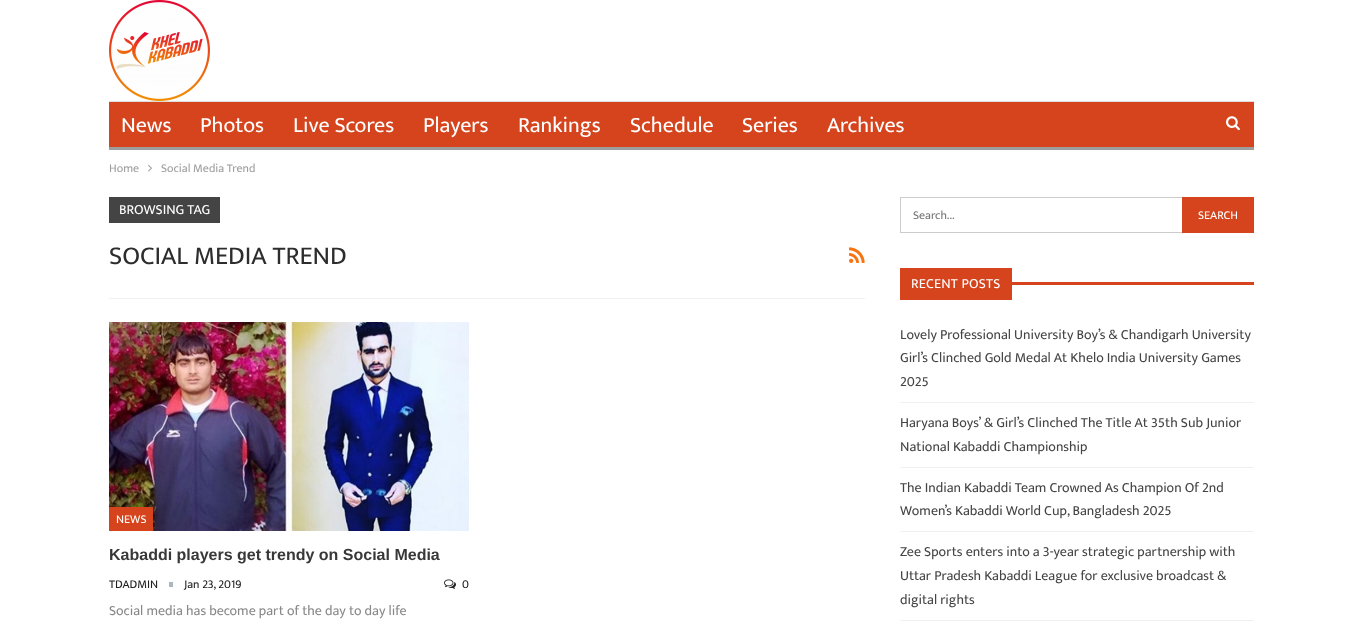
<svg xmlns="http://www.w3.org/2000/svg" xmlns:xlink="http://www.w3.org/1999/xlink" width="1363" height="624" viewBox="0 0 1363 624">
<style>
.cls-1{font:22px Mukta;fill:#ffffff}
.cls-2{font:12px Mukta;fill:#9e9e9e}
.cls-3{font:14px Mukta;fill:#ffffff}
.cls-4{font:26px Mukta;fill:#2d2d2d}
.cls-5{font:12px Mukta;fill:#ffffff}
.cls-6{font:bold 16px Liberation Sans;fill:#383838}
.cls-7{font:12px Mukta;fill:#212121}
.cls-8{font:14px Mukta;fill:#888888}
.cls-9{font:12px Mukta;fill:#757575}
.cls-10{font:14px Mukta;letter-spacing:0.25px;fill:#ffffff}
.cls-11{font:14px Mukta;fill:#444444}
</style>
<rect width="100%" height="100%" fill="#ffffff"/>
<image xlink:href="image0.png" x="109" y="0" width="101" height="101"/>
<rect fill="#d5441c" x="109" y="102" width="1145" height="45"/>
<rect fill="#dedede" x="109" y="101" width="1145" height="1"/>
<rect fill="#9e9e9e" x="109" y="147" width="1145" height="3"/>
<image xlink:href="image1.png" x="1226" y="116" width="14" height="15"/>
<image xlink:href="image2.png" x="148" y="164" width="4" height="8"/>
<rect fill="#f0f0f0" x="109" y="298" width="756" height="1"/>
<rect fill="#444444" x="109" y="197" width="111" height="26"/>
<image xlink:href="image3.png" x="849" y="247" width="16" height="16"/>
<image xlink:href="image4.png" x="109" y="322" width="360" height="209"/>
<rect fill="#d5441c" x="109" y="507" width="44" height="24"/>
<rect fill="#adb5bd" x="169" y="582" width="4" height="5"/>
<image xlink:href="image5.png" x="444" y="579" width="12" height="10"/>
<rect fill="none" stroke="#cccccc" x="900.5" y="197.5" width="353" height="35"/>
<rect fill="#d5441c" x="1182" y="197" width="72" height="36"/>
<rect fill="#d5441c" x="900" y="268" width="112" height="32"/>
<rect fill="#d5441c" x="1012" y="282" width="242" height="3"/>
<rect fill="#f0f0f0" x="900" y="402" width="354" height="1"/>
<rect fill="#f0f0f0" x="900" y="467" width="354" height="1"/>
<rect fill="#f0f0f0" x="900" y="531" width="354" height="1"/>
<rect fill="#f0f0f0" x="900" y="620" width="354" height="1"/>
<text class="cls-1" x="121" y="132">News</text>
<text class="cls-1" x="200" y="132">Photos</text>
<text class="cls-1" x="293" y="132">Live Scores</text>
<text class="cls-1" x="423" y="132">Players</text>
<text class="cls-1" x="518" y="132">Rankings</text>
<text class="cls-1" x="630" y="132">Schedule</text>
<text class="cls-1" x="742" y="132">Series</text>
<text class="cls-1" x="827" y="132">Archives</text>
<text class="cls-2" x="109" y="172">Home</text>
<text class="cls-2" x="161" y="172">Social Media Trend</text>
<text class="cls-3" x="119" y="214">BROWSING TAG</text>
<text class="cls-4" x="109" y="264">SOCIAL MEDIA TREND</text>
<text class="cls-5" x="116" y="523">NEWS</text>
<text class="cls-6" x="109" y="560">Kabaddi players get trendy on Social Media</text>
<text class="cls-7" x="109" y="588">TDADMIN</text>
<text class="cls-7" x="184" y="588">Jan 23, 2019</text>
<text class="cls-7" x="462" y="588">0</text>
<text class="cls-8" x="109" y="615">Social media has become part of the day to day life</text>
<text class="cls-9" x="913" y="219">Search...</text>
<text class="cls-5" x="1198" y="219">SEARCH</text>
<text class="cls-10" x="911" y="288">RECENT POSTS</text>
<text class="cls-11"><tspan x="900" y="339">Lovely Professional University Boy’s &amp; Chandigarh University</tspan><tspan x="900" y="362">Girl’s Clinched Gold Medal At Khelo India University Games</tspan><tspan x="900" y="386">2025</tspan></text>
<text class="cls-11"><tspan x="900" y="427">Haryana Boys’ &amp; Girl’s Clinched The Title At 35th Sub Junior</tspan><tspan x="900" y="451">National Kabaddi Championship</tspan></text>
<text class="cls-11"><tspan x="900" y="492">The Indian Kabaddi Team Crowned As Champion Of 2nd</tspan><tspan x="900" y="515">Women’s Kabaddi World Cup, Bangladesh 2025</tspan></text>
<text class="cls-11"><tspan x="900" y="556">Zee Sports enters into a 3-year strategic partnership with</tspan><tspan x="900" y="580">Uttar Pradesh Kabaddi League for exclusive broadcast &amp;</tspan><tspan x="900" y="604">digital rights</tspan></text>
</svg>
